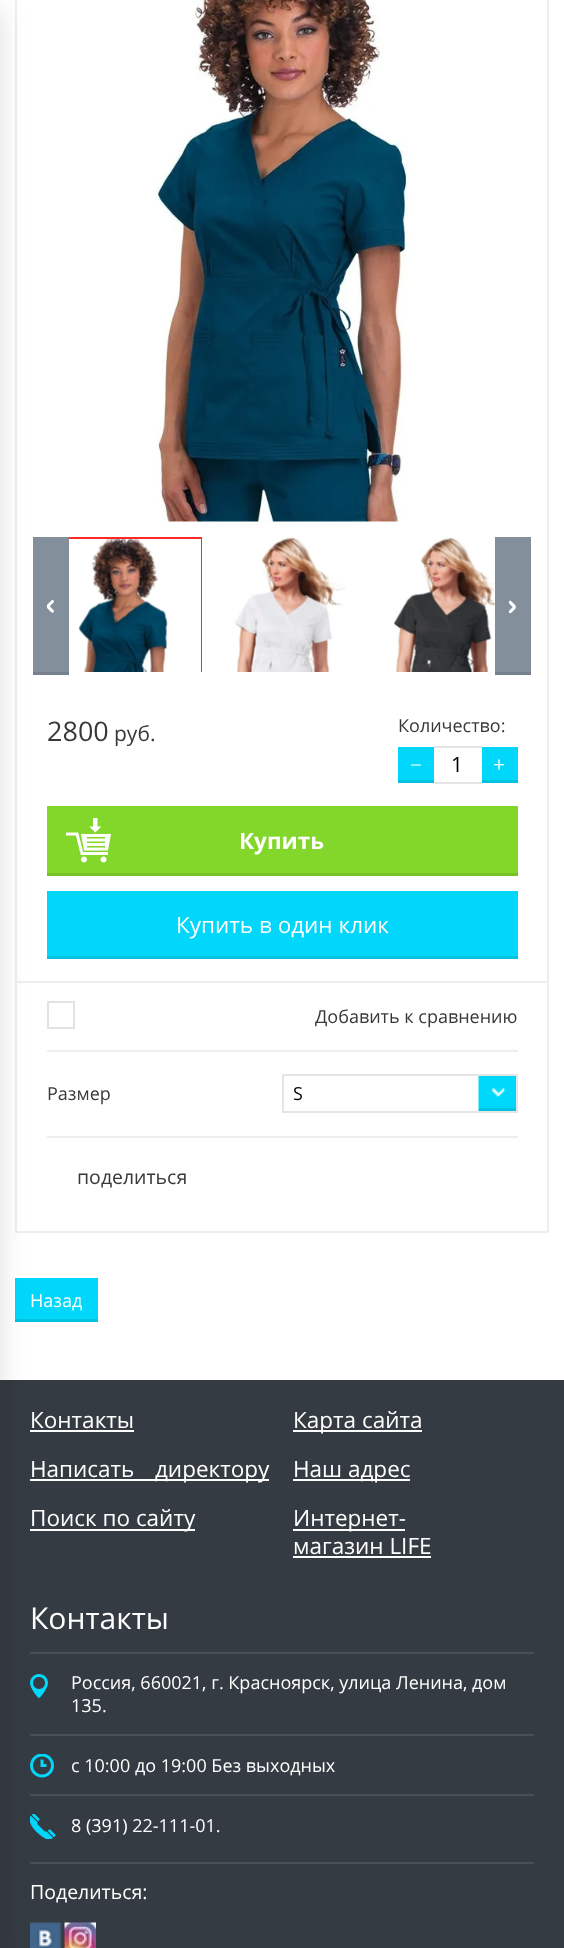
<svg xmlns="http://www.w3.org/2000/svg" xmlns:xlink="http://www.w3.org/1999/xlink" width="564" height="1948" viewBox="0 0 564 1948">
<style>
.cls-1{font:27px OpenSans;fill:#383838}
.cls-2{font:21px OpenSans;fill:#383838}
.cls-3{font:18px OpenSans;fill:#383838}
.cls-4{font:21px Liberation Serif;fill:#ffffff}
.cls-5{font:21px OpenSans;fill:#000000}
.cls-6{font:21px OpenSans;fill:#ffffff}
.cls-7{font:bold 22.5px OpenSans;fill:#ffffff}
.cls-8{font:22.5px OpenSans;fill:#ffffff}
.cls-9{font:18px OpenSans;fill:#000000}
.cls-10{font:19.5px OpenSans;fill:#383838}
.cls-11{font:18px OpenSans;fill:#ffffff}
.cls-12{font:30px OpenSans;fill:#ffffff}
.cls-13{font:19.5px OpenSans;fill:#ffffff}
</style>
<defs>
<clipPath id="clip1"><rect x="69" y="537" width="134" height="135"/></clipPath>
</defs>
<rect width="100%" height="100%" fill="#ffffff"/>
<rect fill="none" stroke="#eeeeee" stroke-width="2" x="16" y="-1" width="532" height="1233"/>
<image xlink:href="image2.png" x="78" y="539" width="90" height="133"/>
<g clip-path="url(#clip1)">
<rect fill="none" stroke="#ff2828" stroke-width="2" x="45" y="538" width="157" height="136"/>
</g>
<rect fill="#848f9c" x="33" y="537" width="36" height="135"/>
<rect fill="#77818c" x="33" y="672" width="36" height="3"/>
<rect fill="#eeeeee" x="17" y="981" width="531" height="2"/>
<rect fill="#01d7fa" x="15" y="1278" width="83" height="41"/>
<rect fill="#01c2e1" x="15" y="1319" width="83" height="3"/>
<rect fill="#353b42" x="0" y="1380" width="564" height="568"/>
<rect fill="#ffffff" x="30" y="1430" width="104" height="2"/>
<rect fill="#ffffff" x="30" y="1479" width="239" height="2"/>
<rect fill="#ffffff" x="30" y="1529" width="165" height="2"/>
<rect fill="#494f55" x="30" y="1652" width="504" height="2"/>
<image xlink:href="image8.png" x="30" y="1674" width="18" height="24"/>
<rect fill="#494f55" x="30" y="1734" width="504" height="2"/>
<image xlink:href="image9.png" x="30" y="1754" width="24" height="24"/>
<rect fill="#494f55" x="30" y="1794" width="504" height="2"/>
<image xlink:href="image10.png" x="30" y="1814" width="26" height="25"/>
<rect fill="#494f55" x="30" y="1862" width="504" height="2"/>
<image xlink:href="image11.png" x="30" y="1922" width="32" height="26"/>
<rect fill="#000000" fill-opacity="0.13" filter="blur(13.5px)" x="-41" y="11" width="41" height="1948"/>
<image xlink:href="image0.png" x="157" y="0" width="253" height="522"/>
<image xlink:href="image1.png" x="46" y="600" width="8" height="13"/>
<image xlink:href="image3.png" x="202" y="537" width="144" height="135"/>
<image xlink:href="image4.png" x="393" y="537" width="102" height="135"/>
<rect fill="#848f9c" x="495" y="537" width="36" height="135"/>
<rect fill="#77818c" x="495" y="672" width="36" height="3"/>
<image xlink:href="image5.png" x="508" y="600" width="8" height="14"/>
<rect fill="#01d7fa" x="398" y="747" width="36" height="33"/>
<rect fill="#01c2e1" x="398" y="780" width="36" height="3"/>
<rect fill="#e5e5e5" x="434" y="746" width="48" height="2"/>
<rect fill="#e5e5e5" x="434" y="782" width="48" height="2"/>
<rect fill="#01d7fa" x="482" y="747" width="36" height="33"/>
<rect fill="#01c2e1" x="482" y="780" width="36" height="3"/>
<rect fill="#83d62a" x="47" y="806" width="471" height="67"/>
<rect fill="#76c126" x="47" y="873" width="471" height="3"/>
<image xlink:href="image6.png" x="66" y="818" width="45" height="45"/>
<rect fill="#01d7fa" x="47" y="891" width="471" height="65"/>
<rect fill="#01c2e1" x="47" y="956" width="471" height="3"/>
<rect fill="#eeeeee" x="47" y="1050" width="471" height="2"/>
<rect fill="none" stroke="#e2e2e2" stroke-width="2" x="48" y="1002" width="26" height="26"/>
<rect fill="#eeeeee" x="47" y="1136" width="471" height="2"/>
<image xlink:href="image7.png" x="478" y="1076" width="38" height="35"/>
<rect fill="none" stroke="#e5e5e5" stroke-width="2" x="283" y="1075" width="234" height="37"/>
<rect fill="#ffffff" x="293" y="1430" width="129" height="2"/>
<rect fill="#ffffff" x="293" y="1479" width="117" height="2"/>
<rect fill="#ffffff" x="293" y="1529" width="112" height="2"/>
<rect fill="#ffffff" x="293" y="1556" width="138" height="2"/>
<image xlink:href="image12.png" x="64" y="1922" width="32" height="26"/>
<text class="cls-1" x="47" y="741">2800</text>
<text class="cls-2" x="114" y="741">руб.</text>
<text class="cls-3" x="398" y="732">Количество:</text>
<text class="cls-4" x="410" y="772">−</text>
<text class="cls-5" x="451" y="772">1</text>
<text class="cls-6" x="493" y="772">+</text>
<text class="cls-7" x="239" y="849">Купить</text>
<text class="cls-8" x="176" y="933">Купить в один клик</text>
<text class="cls-3" x="315" y="1023">Добавить к сравнению</text>
<text class="cls-3" x="47" y="1100">Размер</text>
<text class="cls-9" x="293" y="1100">S</text>
<text class="cls-10" x="77" y="1184">поделиться</text>
<text class="cls-11" x="30" y="1307">Назад</text>
<text class="cls-8" x="30" y="1428">Контакты</text>
<text class="cls-8" x="293" y="1428">Карта сайта</text>
<text class="cls-8" x="30" y="1477">Написать</text>
<text class="cls-8" x="155" y="1477">директору</text>
<text class="cls-8" x="293" y="1477">Наш адрес</text>
<text class="cls-8" x="30" y="1526">Поиск по сайту</text>
<text class="cls-8"><tspan x="293" y="1526">Интернет-</tspan><tspan x="293" y="1554">магазин LIFE</tspan></text>
<text class="cls-12" x="30" y="1629">Контакты</text>
<text class="cls-11"><tspan x="71" y="1689">Россия, 660021, г. Красноярск, улица Ленина, дом</tspan><tspan x="71" y="1712">135.</tspan></text>
<text class="cls-11" x="71" y="1772">с 10:00 до 19:00 Без выходных</text>
<text class="cls-11" x="71" y="1832">8 (391) 22-111-01.</text>
<text class="cls-13" x="30" y="1899">Поделиться:</text>
</svg>
